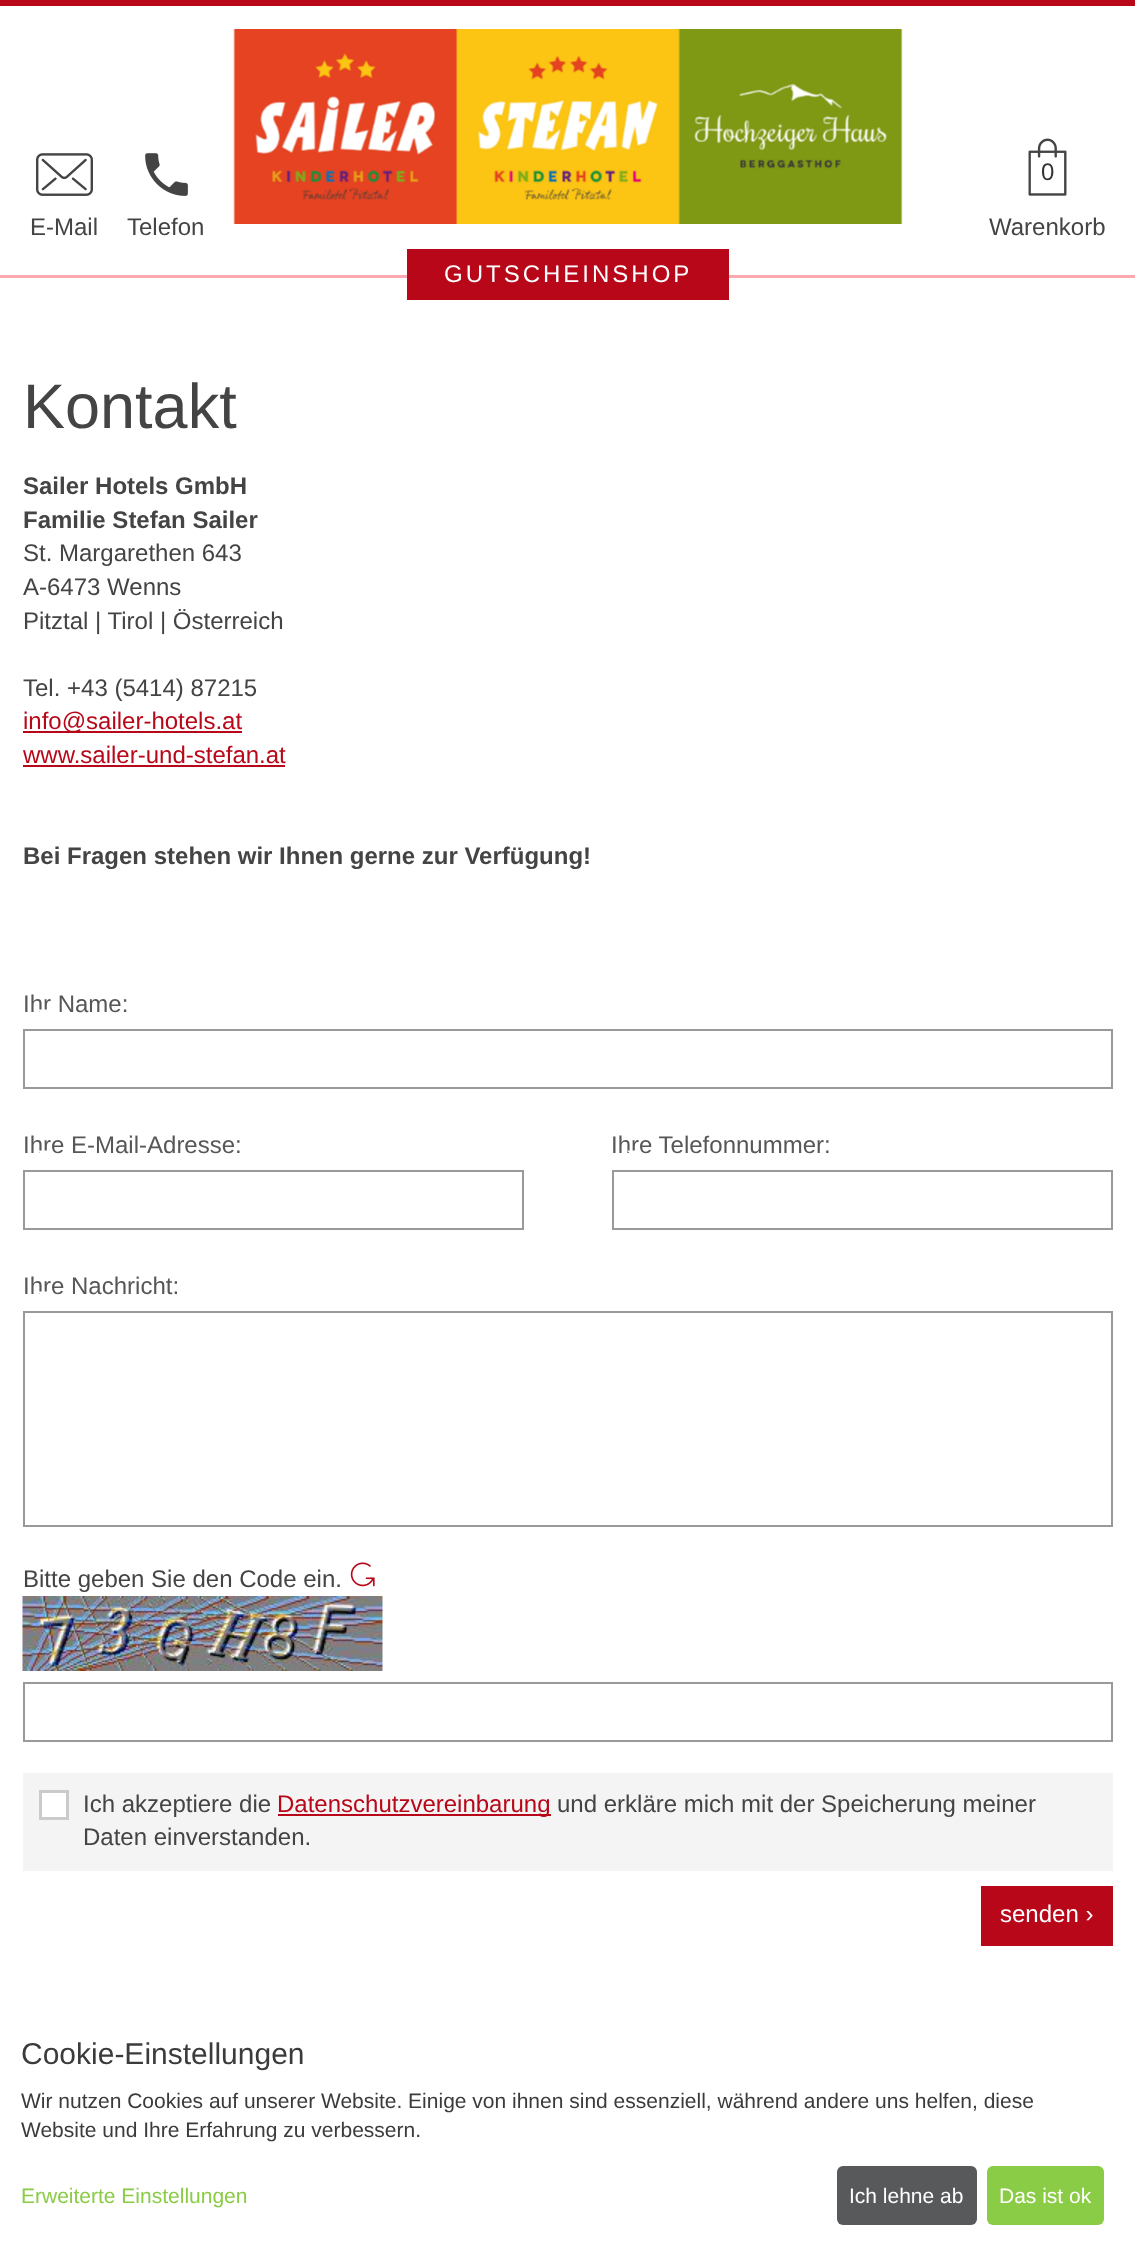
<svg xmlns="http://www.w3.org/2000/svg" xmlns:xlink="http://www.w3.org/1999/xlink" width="1135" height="2245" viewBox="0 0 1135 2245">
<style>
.cls-1{font:24px Liberation Sans;fill:#444444}
.cls-2{font:24px Liberation Sans;fill:#333333}
.cls-3{font:24px Liberation Sans;letter-spacing:3px;fill:#ffffff}
.cls-4{font:63px Liberation Sans;fill:#444444}
.cls-5{font:bold 24px Liberation Sans;fill:#444444}
.cls-6{font:24px Liberation Sans;fill:#b70718}
.cls-7{font:24px Liberation Sans;fill:#575757}
.cls-8{font:24px Liberation Sans;fill:#ffffff}
.cls-9{font:30px Liberation Sans;fill:#3b3b3c}
.cls-10{font:21px Liberation Sans;fill:#3b3b3c}
.cls-11{font:21px Liberation Sans;fill:#8acc45}
.cls-12{font:21px Liberation Sans;fill:#ffffff}
</style>
<rect width="100%" height="100%" fill="#ffffff"/>
<rect fill="#b70718" x="0" y="0" width="1135" height="6"/>
<rect fill="#fca8b0" x="0" y="275" width="1135" height="3"/>
<image xlink:href="image0.png" x="36" y="153" width="57" height="43"/>
<image xlink:href="image1.png" x="145" y="153" width="43" height="43"/>
<image xlink:href="image2.png" x="1028" y="138" width="39" height="58"/>
<image xlink:href="image3.png" x="233" y="29" width="670" height="195"/>
<rect fill="#b70718" x="407" y="249" width="322" height="51"/>
<rect fill="#b70718" x="23" y="731" width="219" height="2"/>
<rect fill="#b70718" x="23" y="765" width="262" height="2"/>
<rect fill="none" stroke="#999999" stroke-width="2" x="24" y="1030" width="1088" height="58"/>
<rect fill="none" stroke="#999999" stroke-width="2" x="24" y="1171" width="499" height="58"/>
<rect fill="none" stroke="#999999" stroke-width="2" x="613" y="1171" width="499" height="58"/>
<rect fill="none" stroke="#999999" stroke-width="2" x="24" y="1312" width="1088" height="214"/>
<image xlink:href="image4.png" x="350" y="1562" width="25" height="25"/>
<image xlink:href="image5.png" x="22" y="1596" width="361" height="75"/>
<rect fill="none" stroke="#999999" stroke-width="2" x="24" y="1683" width="1088" height="58"/>
<rect fill="#f4f4f4" x="23" y="1773" width="1090" height="98"/>
<rect fill="#ffffff" stroke="#cbcbcd" stroke-width="3" x="40.5" y="1791.5" width="27" height="27"/>
<rect fill="#b70718" x="278" y="1814" width="273" height="2"/>
<rect fill="#b70718" x="981" y="1886" width="132" height="60"/>
<rect fill="#58595b" x="837" y="2166" width="140" height="59" rx="6"/>
<rect fill="#8acc45" x="987" y="2166" width="117" height="59" rx="6"/>
<text class="cls-1" x="30" y="235">E-Mail</text>
<text class="cls-1" x="127" y="235">Telefon</text>
<text class="cls-2" x="1041" y="180">0</text>
<text class="cls-1" x="989" y="235">Warenkorb</text>
<text class="cls-3" x="444" y="282">GUTSCHEINSHOP</text>
<text class="cls-4" x="23" y="428">Kontakt</text>
<text class="cls-5"><tspan x="23" y="494">Sailer Hotels GmbH</tspan><tspan x="23" y="528">Familie Stefan Sailer</tspan></text>
<text class="cls-1"><tspan x="23" y="561">St. Margarethen 643</tspan><tspan x="23" y="595">A-6473 Wenns</tspan><tspan x="23" y="629">Pitztal | Tirol | Österreich</tspan></text>
<text class="cls-1" x="23" y="696">Tel. +43 (5414) 87215</text>
<text class="cls-6"><tspan x="23" y="729">info@sailer-hotels.at</tspan><tspan x="23" y="763">www.sailer-und-stefan.at</tspan></text>
<text class="cls-5" x="23" y="864">Bei Fragen stehen wir Ihnen gerne zur Verfügung!</text>
<text class="cls-7" x="23" y="1012">Ihr Name:</text>
<path fill="#ffffff" d="M37.5 1009.5H49.5L43.5 1015.5Z"/>
<text class="cls-7" x="23" y="1153">Ihre E-Mail-Adresse:</text>
<path fill="#ffffff" d="M37.5 1150.5H49.5L43.5 1156.5Z"/>
<text class="cls-7" x="611" y="1153">Ihre Telefonnummer:</text>
<path fill="#ffffff" d="M627 1150.5H639L633 1156.5Z"/>
<text class="cls-7" x="23" y="1294">Ihre Nachricht:</text>
<path fill="#ffffff" d="M37.5 1291.5H49.5L43.5 1297.5Z"/>
<text class="cls-1" x="23" y="1587">Bitte geben Sie den Code ein.</text>
<text class="cls-1" x="83" y="1812">Ich akzeptiere die</text>
<text class="cls-6" x="277" y="1812">Datenschutzvereinbarung</text>
<text class="cls-1" x="557" y="1812">und erkläre mich mit der Speicherung meiner</text>
<text class="cls-1" x="83" y="1845">Daten einverstanden.</text>
<text class="cls-8" x="1000" y="1922">senden ›</text>
<text class="cls-9" x="21" y="2064">Cookie-Einstellungen</text>
<text class="cls-10"><tspan x="21" y="2108">Wir nutzen Cookies auf unserer Website. Einige von ihnen sind essenziell, während andere uns helfen, diese</tspan><tspan x="21" y="2137">Website und Ihre Erfahrung zu verbessern.</tspan></text>
<text class="cls-11" x="21" y="2203">Erweiterte Einstellungen</text>
<text class="cls-12" x="849" y="2203">Ich lehne ab</text>
<text class="cls-12" x="999" y="2203">Das ist ok</text>
</svg>
